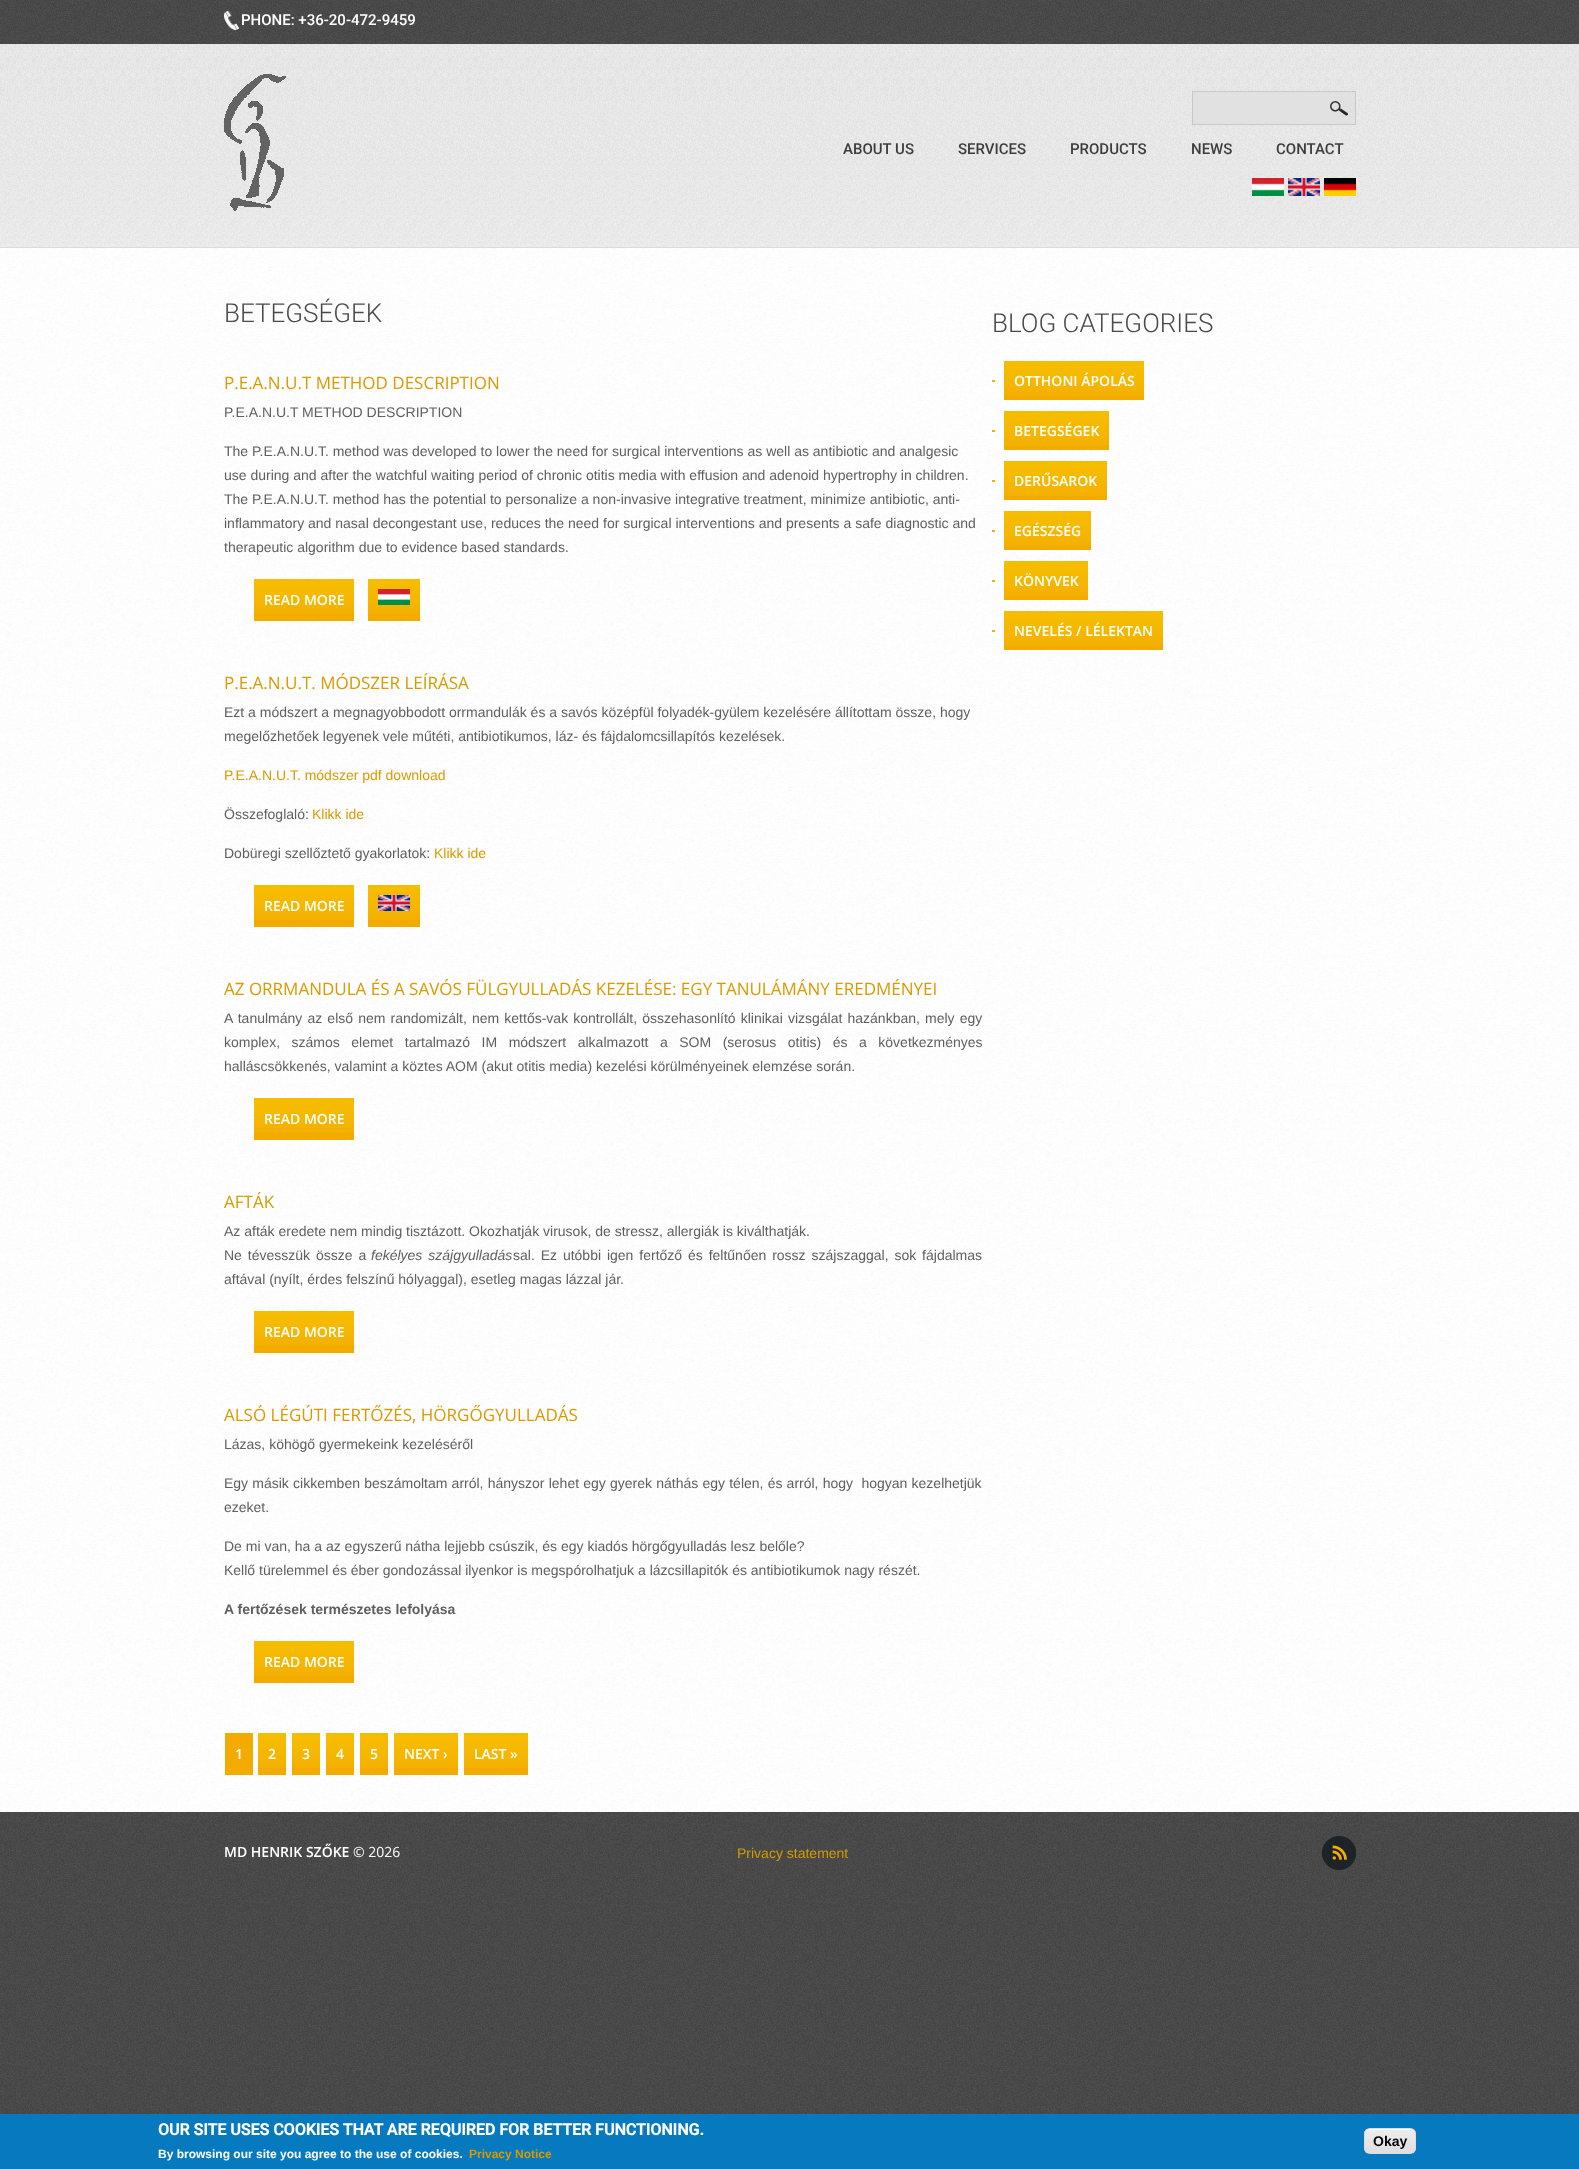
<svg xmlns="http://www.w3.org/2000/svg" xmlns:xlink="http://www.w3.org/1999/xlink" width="1579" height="2169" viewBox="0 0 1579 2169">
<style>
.cls-1{font:500 15px Roboto;fill:#ffffff}
.cls-2{font:500 15px Roboto;fill:#3d3d3d}
.cls-3{font:300 26px Roboto;fill:#494949}
.cls-4{font:17px Open Sans;fill:#d79b00}
.cls-5{font:14px Liberation Sans;fill:#5f5f5f}
.cls-6{font:600 14px Open Sans;fill:#ffffff}
.cls-7{font:14px Liberation Sans;fill:#d79b00}
.cls-8{font:italic 14px Liberation Sans;fill:#5f5f5f}
.cls-9{font:bold 14px Liberation Sans;fill:#5f5f5f}
.cls-10{font:14px Open Sans;fill:#ffffff}
.cls-11{font:bold 16px Roboto;fill:#ffffff}
.cls-12{font:bold 12px Liberation Sans;fill:#ffffff}
.cls-13{font:bold 12px Liberation Sans;fill:#d79b00}
.cls-14{font:bold 14px Liberation Sans;fill:#000000}
</style>
<defs>
<clipPath id="clip1"><rect x="1364" y="2128" width="52" height="26" rx="6"/></clipPath>
<linearGradient id="g1" gradientUnits="userSpaceOnUse" x1="1365" y1="2129" x2="1365" y2="2153"><stop offset="0.05" stop-color="#ededed"/><stop offset="1" stop-color="#dfdfdf"/></linearGradient>
</defs>
<rect width="100%" height="100%" fill="#ffffff"/>
<image xlink:href="image0.png" x="0" y="1812" width="1579" height="302"/>
<image xlink:href="image1.png" x="0" y="53" width="1579" height="194"/>
<image xlink:href="image2.png" x="0" y="0" width="1579" height="44"/>
<image xlink:href="image3.png" x="224" y="11" width="15" height="19"/>
<rect fill="#dbdbdb" x="0" y="247" width="1579" height="1"/>
<image xlink:href="image4.png" x="0" y="44" width="1579" height="203"/>
<image xlink:href="image5.png" x="224" y="74" width="62" height="137"/>
<rect fill="#e1e1e1" stroke="#c8c8c8" x="1192.5" y="91.5" width="163" height="33"/>
<image xlink:href="image6.png" x="1330" y="101" width="18" height="15"/>
<image xlink:href="image7.png" x="1252" y="178" width="32" height="18"/>
<image xlink:href="image8.png" x="1288" y="178" width="32" height="18"/>
<image xlink:href="image9.png" x="1324" y="178" width="32" height="18"/>
<image xlink:href="image10.png" x="0" y="248" width="1579" height="1564"/>
<rect fill="#f3ab00" x="254" y="614" width="100" height="7"/>
<image xlink:href="image11.png" x="254" y="579" width="100" height="35"/>
<rect fill="#f3ab00" x="368" y="614" width="52" height="7"/>
<image xlink:href="image12.png" x="368" y="579" width="52" height="35"/>
<image xlink:href="image13.png" x="378" y="589" width="32" height="16"/>
<rect fill="#f3ab00" x="254" y="920" width="100" height="7"/>
<image xlink:href="image11.png" x="254" y="885" width="100" height="35"/>
<rect fill="#f3ab00" x="368" y="920" width="52" height="7"/>
<image xlink:href="image12.png" x="368" y="885" width="52" height="35"/>
<image xlink:href="image14.png" x="378" y="895" width="32" height="16"/>
<rect fill="#f3ab00" x="254" y="1133" width="100" height="7"/>
<image xlink:href="image11.png" x="254" y="1098" width="100" height="35"/>
<rect fill="#f3ab00" x="254" y="1346" width="100" height="7"/>
<image xlink:href="image11.png" x="254" y="1311" width="100" height="35"/>
<rect fill="#f3ab00" x="254" y="1676" width="100" height="7"/>
<image xlink:href="image11.png" x="254" y="1641" width="100" height="35"/>
<rect fill="#f3ab00" x="225" y="1733" width="28" height="42"/>
<rect fill="#f3ab00" x="258" y="1768" width="28" height="7"/>
<image xlink:href="image15.png" x="258" y="1733" width="28" height="35"/>
<rect fill="#f3ab00" x="292" y="1768" width="28" height="7"/>
<image xlink:href="image15.png" x="292" y="1733" width="28" height="35"/>
<rect fill="#f3ab00" x="326" y="1768" width="28" height="7"/>
<image xlink:href="image15.png" x="326" y="1733" width="28" height="35"/>
<rect fill="#f3ab00" x="360" y="1768" width="28" height="7"/>
<image xlink:href="image15.png" x="360" y="1733" width="28" height="35"/>
<rect fill="#f3ab00" x="394" y="1768" width="64" height="7"/>
<image xlink:href="image16.png" x="394" y="1733" width="64" height="35"/>
<rect fill="#f3ab00" x="464" y="1768" width="64" height="7"/>
<image xlink:href="image16.png" x="464" y="1733" width="64" height="35"/>
<rect fill="#f4af00" x="992" y="380" width="3" height="2"/>
<image xlink:href="image17.png" x="1004" y="361" width="140" height="35"/>
<rect fill="#f3ab00" x="1004" y="396" width="140" height="4"/>
<rect fill="#f4af00" x="992" y="430" width="3" height="2"/>
<image xlink:href="image18.png" x="1004" y="411" width="105" height="35"/>
<rect fill="#f3ab00" x="1004" y="446" width="105" height="4"/>
<rect fill="#f4af00" x="992" y="480" width="3" height="2"/>
<image xlink:href="image19.png" x="1004" y="461" width="103" height="35"/>
<rect fill="#f3ab00" x="1004" y="496" width="103" height="4"/>
<rect fill="#f4af00" x="992" y="530" width="3" height="2"/>
<image xlink:href="image20.png" x="1004" y="511" width="87" height="35"/>
<rect fill="#f3ab00" x="1004" y="546" width="87" height="4"/>
<rect fill="#f4af00" x="992" y="580" width="3" height="2"/>
<image xlink:href="image21.png" x="1004" y="561" width="84" height="35"/>
<rect fill="#f3ab00" x="1004" y="596" width="84" height="4"/>
<rect fill="#f4af00" x="992" y="630" width="3" height="2"/>
<image xlink:href="image22.png" x="1004" y="611" width="159" height="35"/>
<rect fill="#f3ab00" x="1004" y="646" width="159" height="4"/>
<image xlink:href="image23.png" x="1322" y="1836" width="34" height="34"/>
<rect fill="#0779bf" x="0" y="2114" width="1579" height="55"/>
<g clip-path="url(#clip1)">
<rect fill="url(#g1)" x="1364" y="2129" width="52" height="24"/>
</g>
<path fill="#ffffff" d="M1370 2130H1410C1413 2130 1415 2132 1415 2135C1415 2128 1409 2129 1403 2129H1377C1371 2129 1365 2128 1365 2135C1365 2132 1367 2130 1370 2130Z"/>
<rect fill="none" stroke="#dcdcdc" x="1364.5" y="2128.5" width="51" height="25" rx="5.5"/>
<text class="cls-1" x="241" y="25">PHONE: +36-20-472-9459</text>
<text class="cls-2" x="843" y="154">ABOUT US</text>
<text class="cls-2" x="958" y="154">SERVICES</text>
<text class="cls-2" x="1070" y="154">PRODUCTS</text>
<text class="cls-2" x="1191" y="154">NEWS</text>
<text class="cls-2" x="1276" y="154">CONTACT</text>
<text class="cls-3" x="224" y="322">BETEGSÉGEK</text>
<text class="cls-4" x="224" y="389">P.E.A.N.U.T METHOD DESCRIPTION</text>
<text class="cls-5" x="224" y="417">P.E.A.N.U.T METHOD DESCRIPTION</text>
<text class="cls-5"><tspan x="224" y="456">The P.E.A.N.U.T. method was developed to lower the need for surgical interventions as well as antibiotic and analgesic</tspan><tspan x="224" y="480">use during and after the watchful waiting period of chronic otitis media with effusion and adenoid hypertrophy in children.</tspan><tspan x="224" y="504">The P.E.A.N.U.T. method has the potential to personalize a non-invasive integrative treatment, minimize antibiotic, anti-</tspan><tspan x="224" y="528">inflammatory and nasal decongestant use, reduces the need for surgical interventions and presents a safe diagnostic and</tspan><tspan x="224" y="552">therapeutic algorithm due to evidence based standards.</tspan></text>
<text class="cls-6" x="264" y="605">READ MORE</text>
<text class="cls-4" x="224" y="689">P.E.A.N.U.T. MÓDSZER LEÍRÁSA</text>
<text class="cls-5"><tspan x="224" y="717">Ezt a módszert a megnagyobbodott orrmandulák és a savós középfül folyadék-gyülem kezelésére állítottam össze, hogy</tspan><tspan x="224" y="741">megelőzhetőek legyenek vele műtéti, antibiotikumos, láz- és fájdalomcsillapítós kezelések.</tspan></text>
<text class="cls-7" x="224" y="780">P.E.A.N.U.T. módszer pdf download</text>
<text class="cls-5" x="224" y="819">Összefoglaló:</text>
<text class="cls-7" x="312" y="819">Klikk ide</text>
<text class="cls-5" x="224" y="858">Dobüregi szellőztető gyakorlatok:</text>
<text class="cls-7" x="434" y="858">Klikk ide</text>
<text class="cls-6" x="264" y="911">READ MORE</text>
<text class="cls-4" x="224" y="995">AZ ORRMANDULA ÉS A SAVÓS FÜLGYULLADÁS KEZELÉSE: EGY TANULÁMÁNY EREDMÉNYEI</text>
<text class="cls-5"><tspan x="224" y="1023" word-spacing="1.25">A tanulmány az első nem randomizált, nem kettős-vak kontrollált, összehasonlító klinikai vizsgálat hazánkban, mely egy</tspan><tspan x="224" y="1047" word-spacing="7.6">komplex, számos elemet tartalmazó IM módszert alkalmazott a SOM (serosus otitis) és a következményes</tspan><tspan x="224" y="1071">halláscsökkenés, valamint a köztes AOM (akut otitis media) kezelési körülményeinek elemzése során.</tspan></text>
<text class="cls-6" x="264" y="1124">READ MORE</text>
<text class="cls-4" x="224" y="1208">AFTÁK</text>
<text class="cls-5"><tspan x="224" y="1236">Az afták eredete nem mindig tisztázott. Okozhatják virusok, de stressz, allergiák is kiválthatják.</tspan><tspan x="224" y="1260" word-spacing="2">Ne tévesszük össze a</tspan></text>
<text class="cls-8" x="371" y="1260" word-spacing="2">fekélyes szájgyulladás</text>
<text class="cls-5" x="513" y="1260" word-spacing="2">sal. Ez utóbbi igen fertőző és feltűnően rossz szájszaggal, sok fájdalmas</text>
<text class="cls-5" x="224" y="1284">aftával (nyílt, érdes felszínű hólyaggal), esetleg magas lázzal jár.</text>
<text class="cls-6" x="264" y="1337">READ MORE</text>
<text class="cls-4" x="224" y="1421">ALSÓ LÉGÚTI FERTŐZÉS, HÖRGŐGYULLADÁS</text>
<text class="cls-5" x="224" y="1449">Lázas, köhögő gyermekeink kezeléséről</text>
<text class="cls-5" xml:space="preserve"><tspan x="224" y="1488" word-spacing="0.3">Egy másik cikkemben beszámoltam arról, hányszor lehet egy gyerek náthás egy télen, és arról, hogy  hogyan kezelhetjük</tspan><tspan x="224" y="1512">ezeket.</tspan></text>
<text class="cls-5"><tspan x="224" y="1551">De mi van, ha a az egyszerű nátha lejjebb csúszik, és egy kiadós hörgőgyulladás lesz belőle?</tspan><tspan x="224" y="1575">Kellő türelemmel és éber gondozással ilyenkor is megspórolhatjuk a lázcsillapitók és antibiotikumok nagy részét.</tspan></text>
<text class="cls-9" x="224" y="1614">A fertőzések természetes lefolyása</text>
<text class="cls-6" x="264" y="1667">READ MORE</text>
<text class="cls-6" x="235" y="1759">1</text>
<text class="cls-6" x="268" y="1759">2</text>
<text class="cls-6" x="302" y="1759">3</text>
<text class="cls-6" x="336" y="1759">4</text>
<text class="cls-6" x="370" y="1759">5</text>
<text class="cls-6" x="404" y="1759">NEXT ›</text>
<text class="cls-6" x="474" y="1759">LAST »</text>
<text class="cls-3" x="992" y="332">BLOG CATEGORIES</text>
<text class="cls-6" x="1014" y="386">OTTHONI ÁPOLÁS</text>
<text class="cls-6" x="1014" y="436">BETEGSÉGEK</text>
<text class="cls-6" x="1014" y="486">DERŰSAROK</text>
<text class="cls-6" x="1014" y="536">EGÉSZSÉG</text>
<text class="cls-6" x="1014" y="586">KÖNYVEK</text>
<text class="cls-6" x="1014" y="636">NEVELÉS / LÉLEKTAN</text>
<text class="cls-6" x="224" y="1857">MD HENRIK SZŐKE</text>
<text class="cls-10" x="353" y="1857">© 2026</text>
<text class="cls-7" x="737" y="1858">Privacy statement</text>
<text class="cls-11" x="158" y="2135">OUR SITE USES COOKIES THAT ARE REQUIRED FOR BETTER FUNCTIONING.</text>
<text class="cls-12" x="158" y="2158">By browsing our site you agree to the use of cookies.</text>
<text class="cls-13" x="469" y="2158">Privacy Notice</text>
<text class="cls-14" x="1373" y="2146">Okay</text>
</svg>
